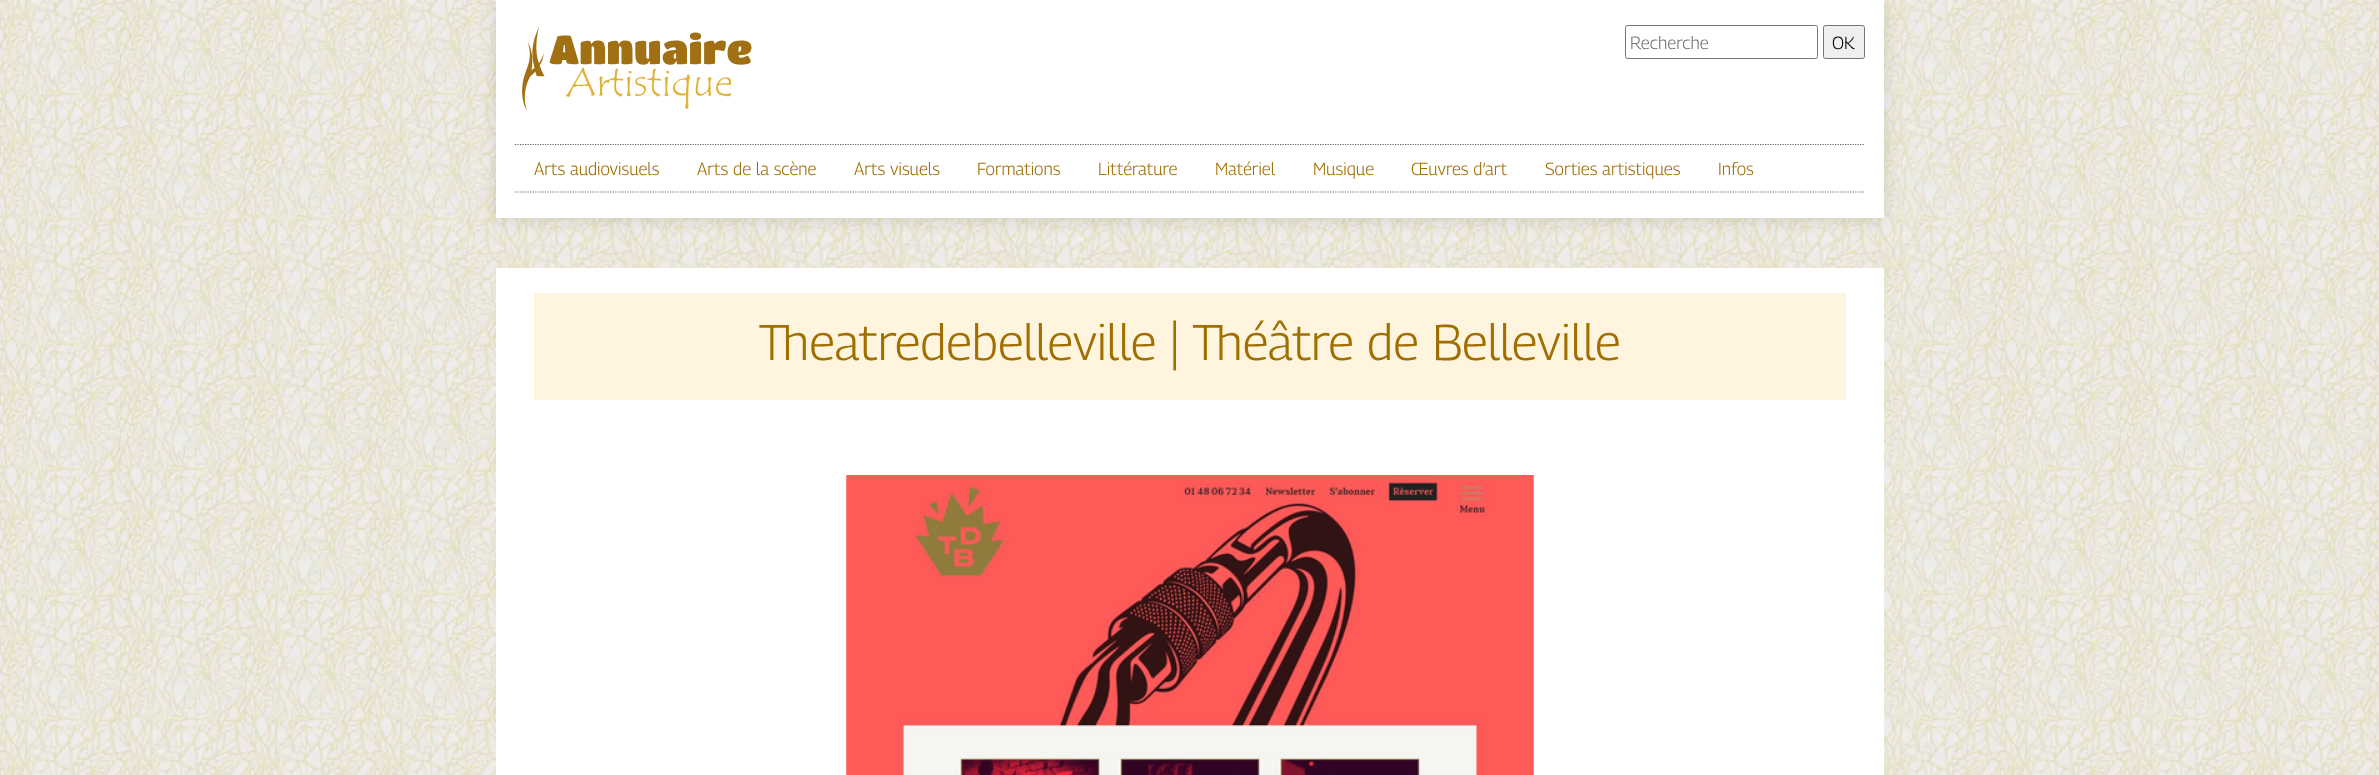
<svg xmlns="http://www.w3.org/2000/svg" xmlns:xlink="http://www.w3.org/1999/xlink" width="2379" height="775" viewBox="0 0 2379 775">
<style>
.cls-1{font:100 17.5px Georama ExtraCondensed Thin;fill:#757575}
.cls-2{font:100 17.5px Georama ExtraCondensed Thin;fill:#000000}
.cls-3{font:100 17.5px Georama ExtraCondensed Thin;fill:#a16f00}
.cls-4{font:100 50px Georama ExtraCondensed Thin;fill:#a16f00}
</style>
<rect width="100%" height="100%" fill="#ffffff"/>
<image xlink:href="image0.png" x="0" y="0" width="2379" height="775"/>
<rect fill="#000000" fill-opacity="0.1" filter="blur(8px)" x="496" y="3" width="1388" height="217"/>
<rect fill="#ffffff" x="496" y="0" width="1388" height="218"/>
<image xlink:href="image1.png" x="522" y="27" width="230" height="84"/>
<rect fill="none" stroke="#767676" x="1625.5" y="25.5" width="192" height="33" rx="2"/>
<rect fill="#efefef" stroke="#767676" x="1823.5" y="25.5" width="41" height="33" rx="2"/>
<path fill="none" stroke="#666666" stroke-width="1.2" stroke-dasharray="1.25 1.25" d="M515 144.5H1865"/>
<path fill="none" stroke="#666666" stroke-width="1.2" stroke-dasharray="1.25 1.25" d="M515 192H1865"/>
<rect fill="#ffffff" x="496" y="268" width="1388" height="507"/>
<rect fill="#fff5de" x="534" y="293" width="1312" height="107"/>
<image xlink:href="image2.png" x="846" y="475" width="688" height="300"/>
<text class="cls-1" x="1630" y="49">Recherche</text>
<text class="cls-2" x="1832" y="49">OK</text>
<text class="cls-3" x="534" y="175">Arts audiovisuels</text>
<text class="cls-3" x="697" y="175">Arts de la scène</text>
<text class="cls-3" x="854" y="175">Arts visuels</text>
<text class="cls-3" x="977" y="175">Formations</text>
<text class="cls-3" x="1098" y="175">Littérature</text>
<text class="cls-3" x="1215" y="175">Matériel</text>
<text class="cls-3" x="1313" y="175">Musique</text>
<text class="cls-3" x="1411" y="175">Œuvres d’art</text>
<text class="cls-3" x="1545" y="175">Sorties artistiques</text>
<text class="cls-3" x="1718" y="175">Infos</text>
<text class="cls-4" x="759" y="360">Theatredebelleville | Théâtre de Belleville</text>
</svg>
